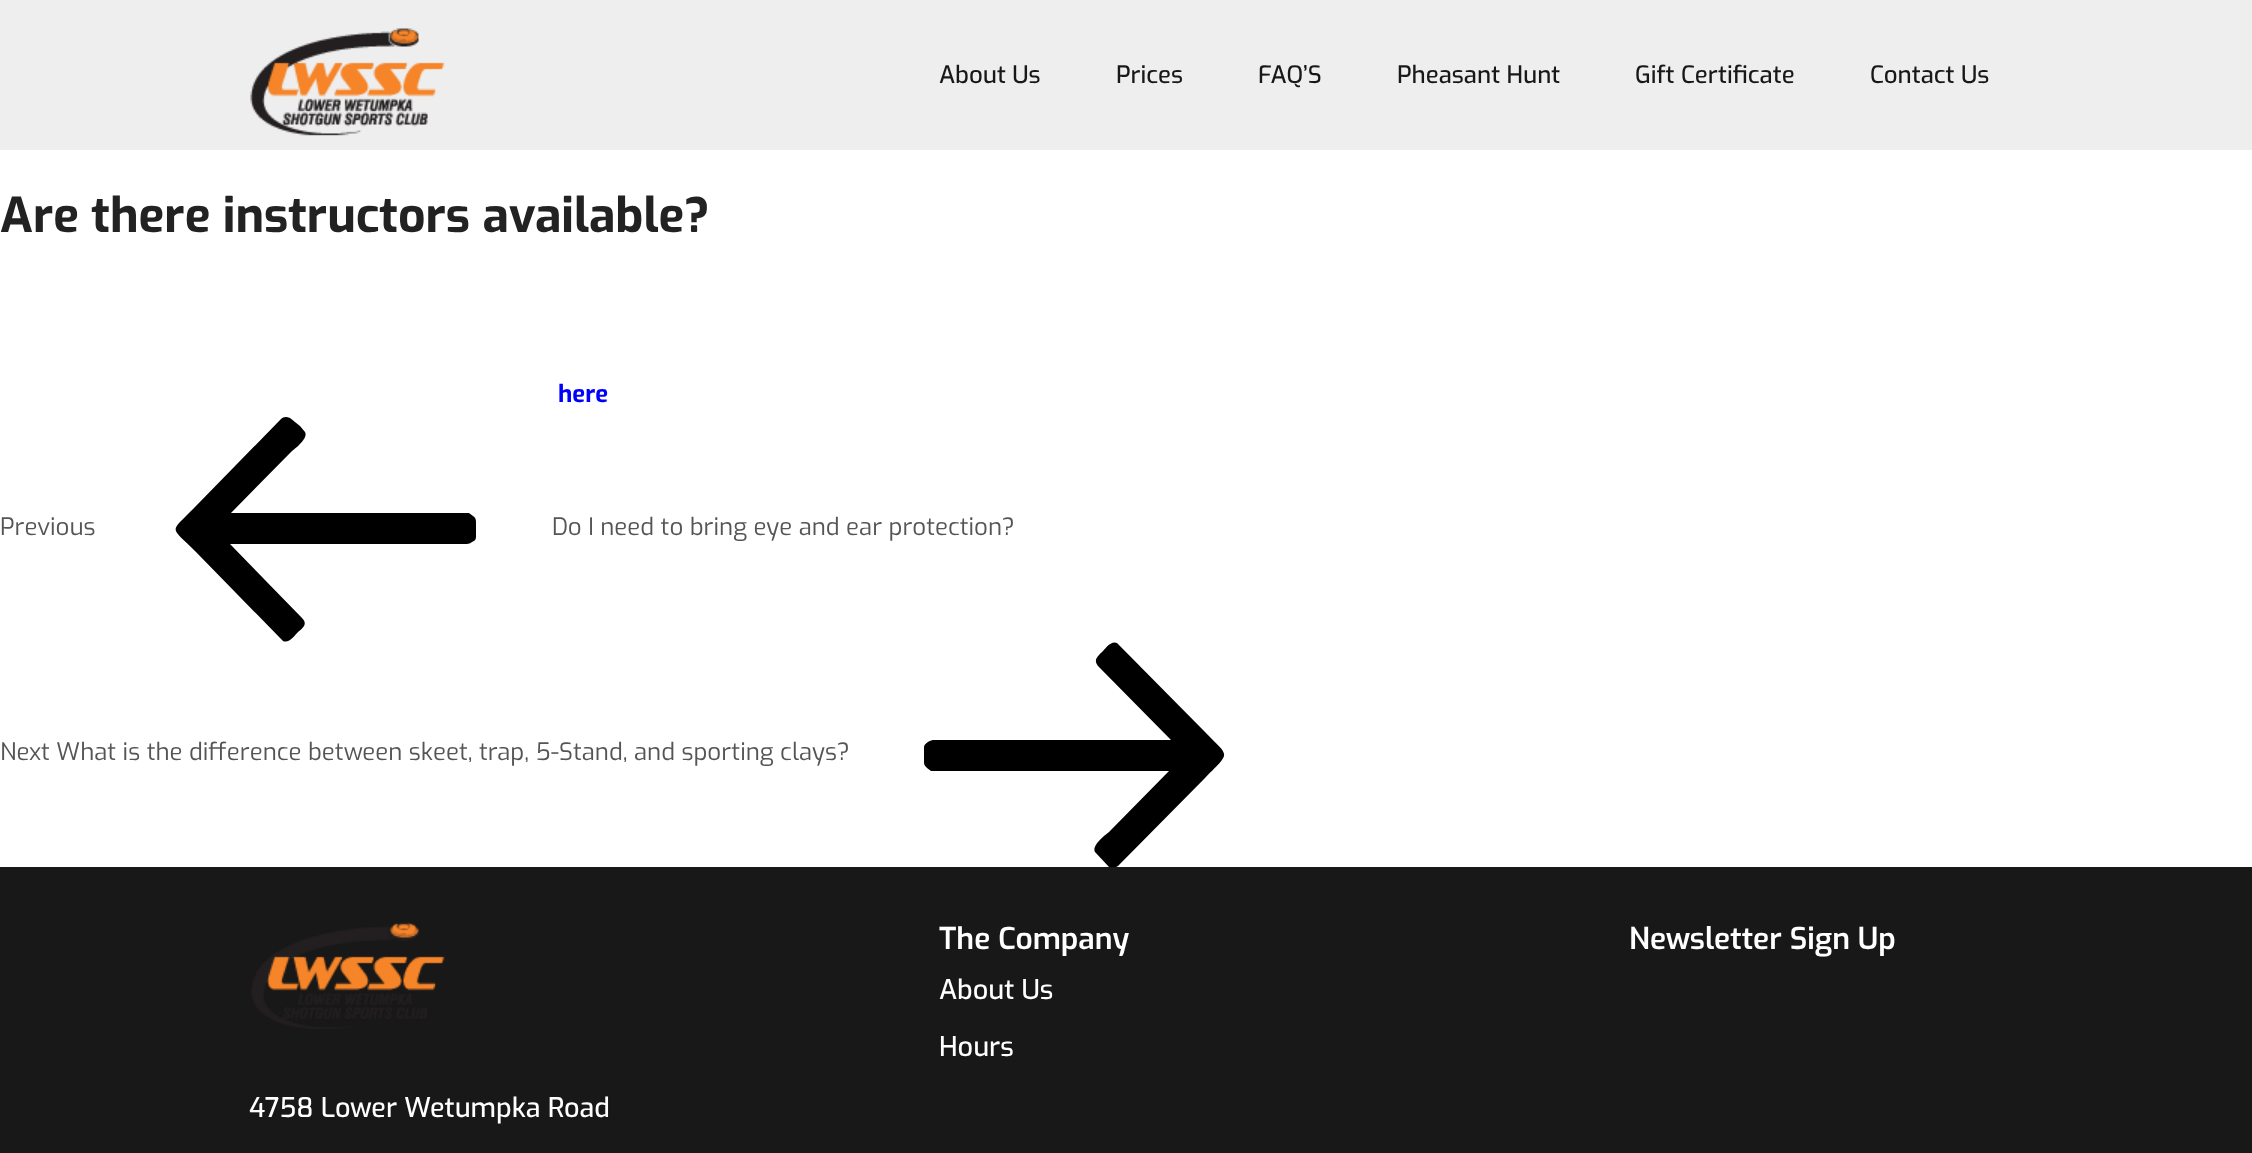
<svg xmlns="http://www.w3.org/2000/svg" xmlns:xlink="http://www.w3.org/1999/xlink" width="2252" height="1153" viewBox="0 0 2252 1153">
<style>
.cls-1{font:500 24px Exo;fill:#181818}
.cls-2{font:bold 48px Exo;fill:#222222}
.cls-3{font:bold 24px Exo;fill:#0000ff}
.cls-4{font:24px Exo;fill:#555555}
.cls-5{font:600 30px Exo;fill:#ffffff}
.cls-6{font:500 27px Exo;fill:#ffffff}
</style>
<rect width="100%" height="100%" fill="#ffffff"/>
<rect fill="#eeeeee" x="0" y="0" width="2252" height="150"/>
<image xlink:href="image0.png" x="250" y="28" width="195" height="108"/>
<path fill="#000000" d="M473 516L469 513H231L291 452C292 451 309 439 305 432L300 426C296 423 293 420 290 418C286 416 283 417 281 419L195 507C169 534 169 525 196 552L283 641C289 644 295 635 298 632C303 628 308 624 302 618L230 544H467C468 544 471 543 472 542C475 541 476 539 476 537V522C476 519 475 517 473 516Z"/>
<path fill="#000000" d="M927 768L931 771H1169L1109 832C1108 833 1091 845 1095 852L1109 867C1112 869 1115 868 1118 866L1205 778C1231 751 1230 758 1205 732L1117 643C1111 640 1105 649 1102 652C1098 656 1093 660 1098 666L1171 740H933C932 740 929 741 928 742C926 743 924 745 924 747V763C924 765 926 767 927 768Z"/>
<rect fill="#181818" x="0" y="867" width="2252" height="286"/>
<image xlink:href="image1.png" x="251" y="922" width="194" height="107"/>
<text class="cls-1" x="939" y="83">About Us</text>
<text class="cls-1" x="1116" y="83">Prices</text>
<text class="cls-1" x="1258" y="83">FAQ’S</text>
<text class="cls-1" x="1397" y="83">Pheasant Hunt</text>
<text class="cls-1" x="1635" y="83">Gift Certificate</text>
<text class="cls-1" x="1870" y="83">Contact Us</text>
<text class="cls-2" x="0" y="232">Are there instructors available?</text>
<text class="cls-3" x="558" y="402">here</text>
<text class="cls-4" x="0" y="535">Previous</text>
<text class="cls-4" x="552" y="535">Do I need to bring eye and ear protection?</text>
<text class="cls-4" x="0" y="760">Next What is the difference between skeet, trap, 5-Stand, and sporting clays?</text>
<text class="cls-5" x="939" y="949">The Company</text>
<text class="cls-6" x="939" y="999">About Us</text>
<text class="cls-6" x="939" y="1056">Hours</text>
<text class="cls-5" x="1629" y="949">Newsletter Sign Up</text>
<text class="cls-6" x="249" y="1117">4758 Lower Wetumpka Road</text>
</svg>
